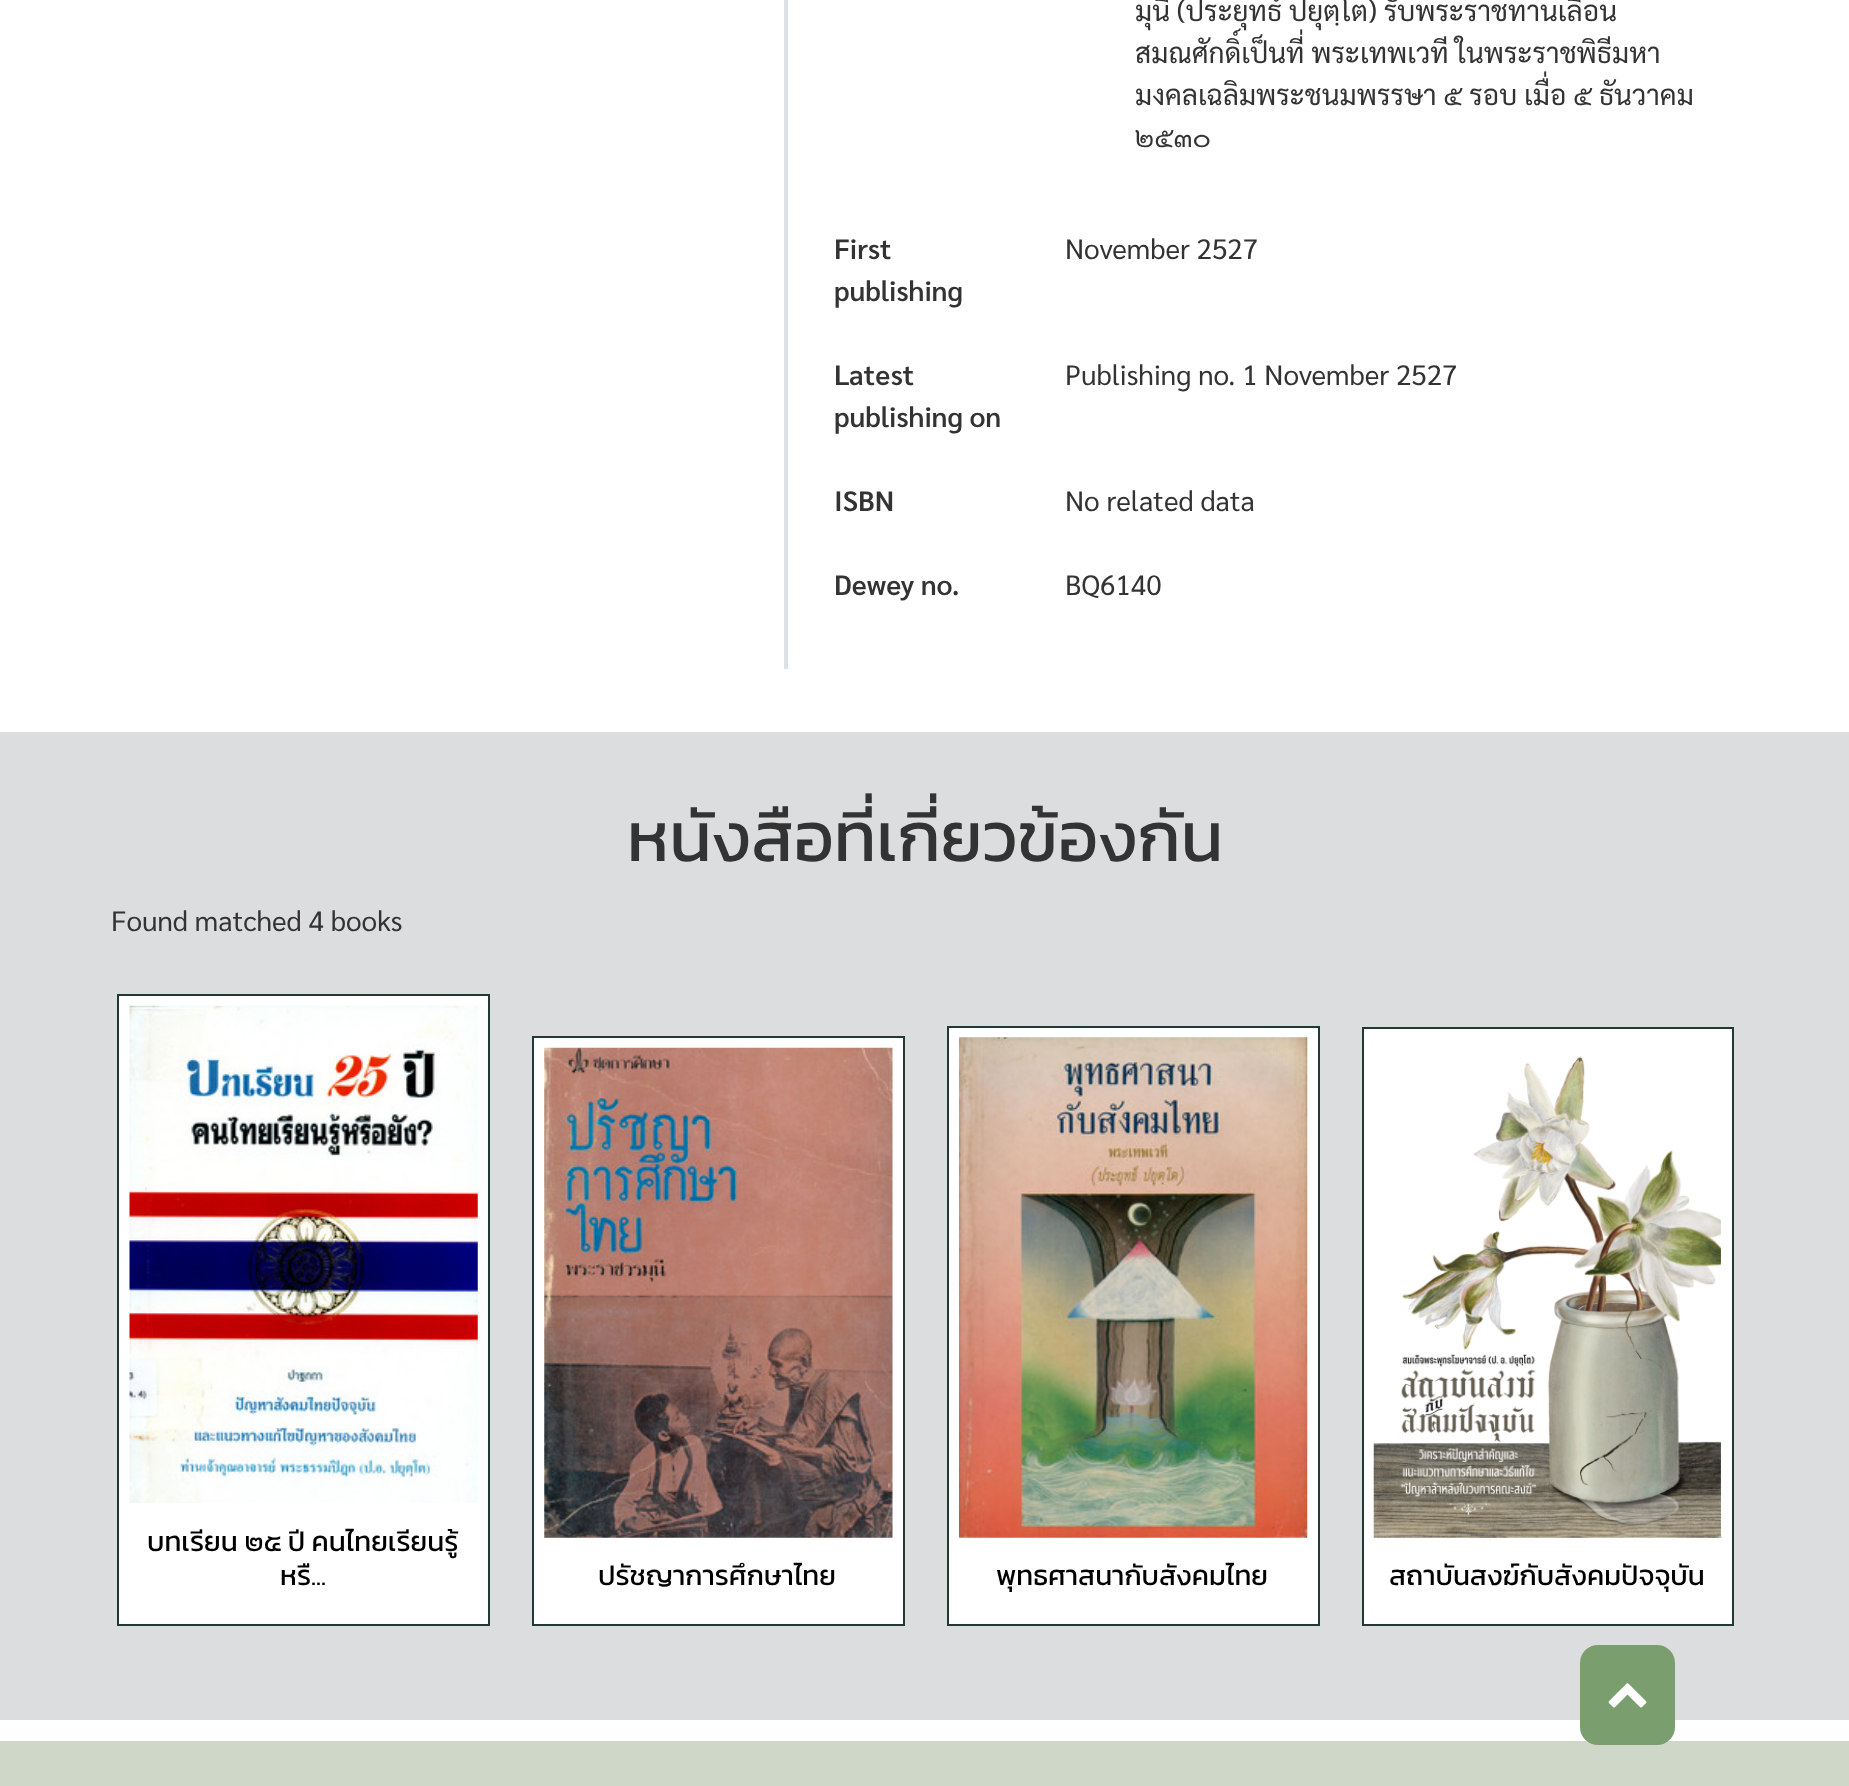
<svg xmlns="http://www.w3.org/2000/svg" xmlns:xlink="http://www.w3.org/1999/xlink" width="1849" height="1786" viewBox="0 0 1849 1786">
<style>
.cls-1{font:28px Sarabun;fill:#333333}
.cls-2{font:600 28px Sarabun;fill:#333333}
.cls-3{font:70px Kanit;fill:#333333}
.cls-4{font:28px Kanit;fill:#000000}
</style>
<rect width="100%" height="100%" fill="#ffffff"/>
<rect fill="#dee2e6" x="784" y="0" width="4" height="669"/>
<rect fill="#dcddde" x="0" y="732" width="1849" height="988"/>
<rect fill="#ffffff" stroke="#223832" stroke-width="2" x="118" y="995" width="371" height="630"/>
<image xlink:href="image0.png" x="129" y="1005" width="349" height="498"/>
<rect fill="#ffffff" stroke="#223832" stroke-width="2" x="533" y="1037" width="371" height="588"/>
<image xlink:href="image1.png" x="544" y="1047" width="349" height="491"/>
<rect fill="#ffffff" stroke="#223832" stroke-width="2" x="948" y="1027" width="371" height="598"/>
<image xlink:href="image2.png" x="959" y="1037" width="349" height="501"/>
<rect fill="#ffffff" stroke="#223832" stroke-width="2" x="1363" y="1028" width="370" height="597"/>
<image xlink:href="image3.png" x="1373" y="1056" width="349" height="482"/>
<rect fill="#cfd8c8" x="0" y="1741" width="1849" height="45"/>
<rect fill="#7a9e6e" x="1580" y="1645" width="95" height="100" rx="18"/>
<image xlink:href="image4.png" x="1608" y="1683" width="39" height="25"/>
<text class="cls-1"><tspan x="1135" y="21">มุนี (ประยุทธ์ ปยุตฺโต) รับพระราชทานเลื่อน</tspan><tspan x="1135" y="63">สมณศักดิ์เป็นที่ พระเทพเวที ในพระราชพิธีมหา</tspan><tspan x="1135" y="105">มงคลเฉลิมพระชนมพรรษา ๕ รอบ เมื่อ ๕ ธันวาคม</tspan><tspan x="1135" y="147">๒๕๓๐</tspan></text>
<text class="cls-2"><tspan x="834" y="259">First</tspan><tspan x="834" y="301">publishing</tspan></text>
<text class="cls-1" x="1065" y="259">November 2527</text>
<text class="cls-2"><tspan x="834" y="385">Latest</tspan><tspan x="834" y="427">publishing on</tspan></text>
<text class="cls-1" x="1065" y="385">Publishing no. 1 November 2527</text>
<text class="cls-2" x="834" y="511">ISBN</text>
<text class="cls-1" x="1065" y="511">No related data</text>
<text class="cls-2" x="834" y="595">Dewey no.</text>
<text class="cls-1" x="1065" y="595">BQ6140</text>
<text class="cls-3" x="627" y="861">หนังสือที่เกี่ยวข้องกัน</text>
<text class="cls-1" x="111" y="931">Found matched 4 books</text>
<text class="cls-4" x="147" y="1551">บทเรียน ๒๕ ปี คนไทยเรียนรู้</text>
<text class="cls-4" x="280" y="1585">หรื...</text>
<text class="cls-4" x="598" y="1585">ปรัชญาการศึกษาไทย</text>
<text class="cls-4" x="996" y="1585">พุทธศาสนากับสังคมไทย</text>
<text class="cls-4" x="1389" y="1585">สถาบันสงฆ์กับสังคมปัจจุบัน</text>
</svg>
